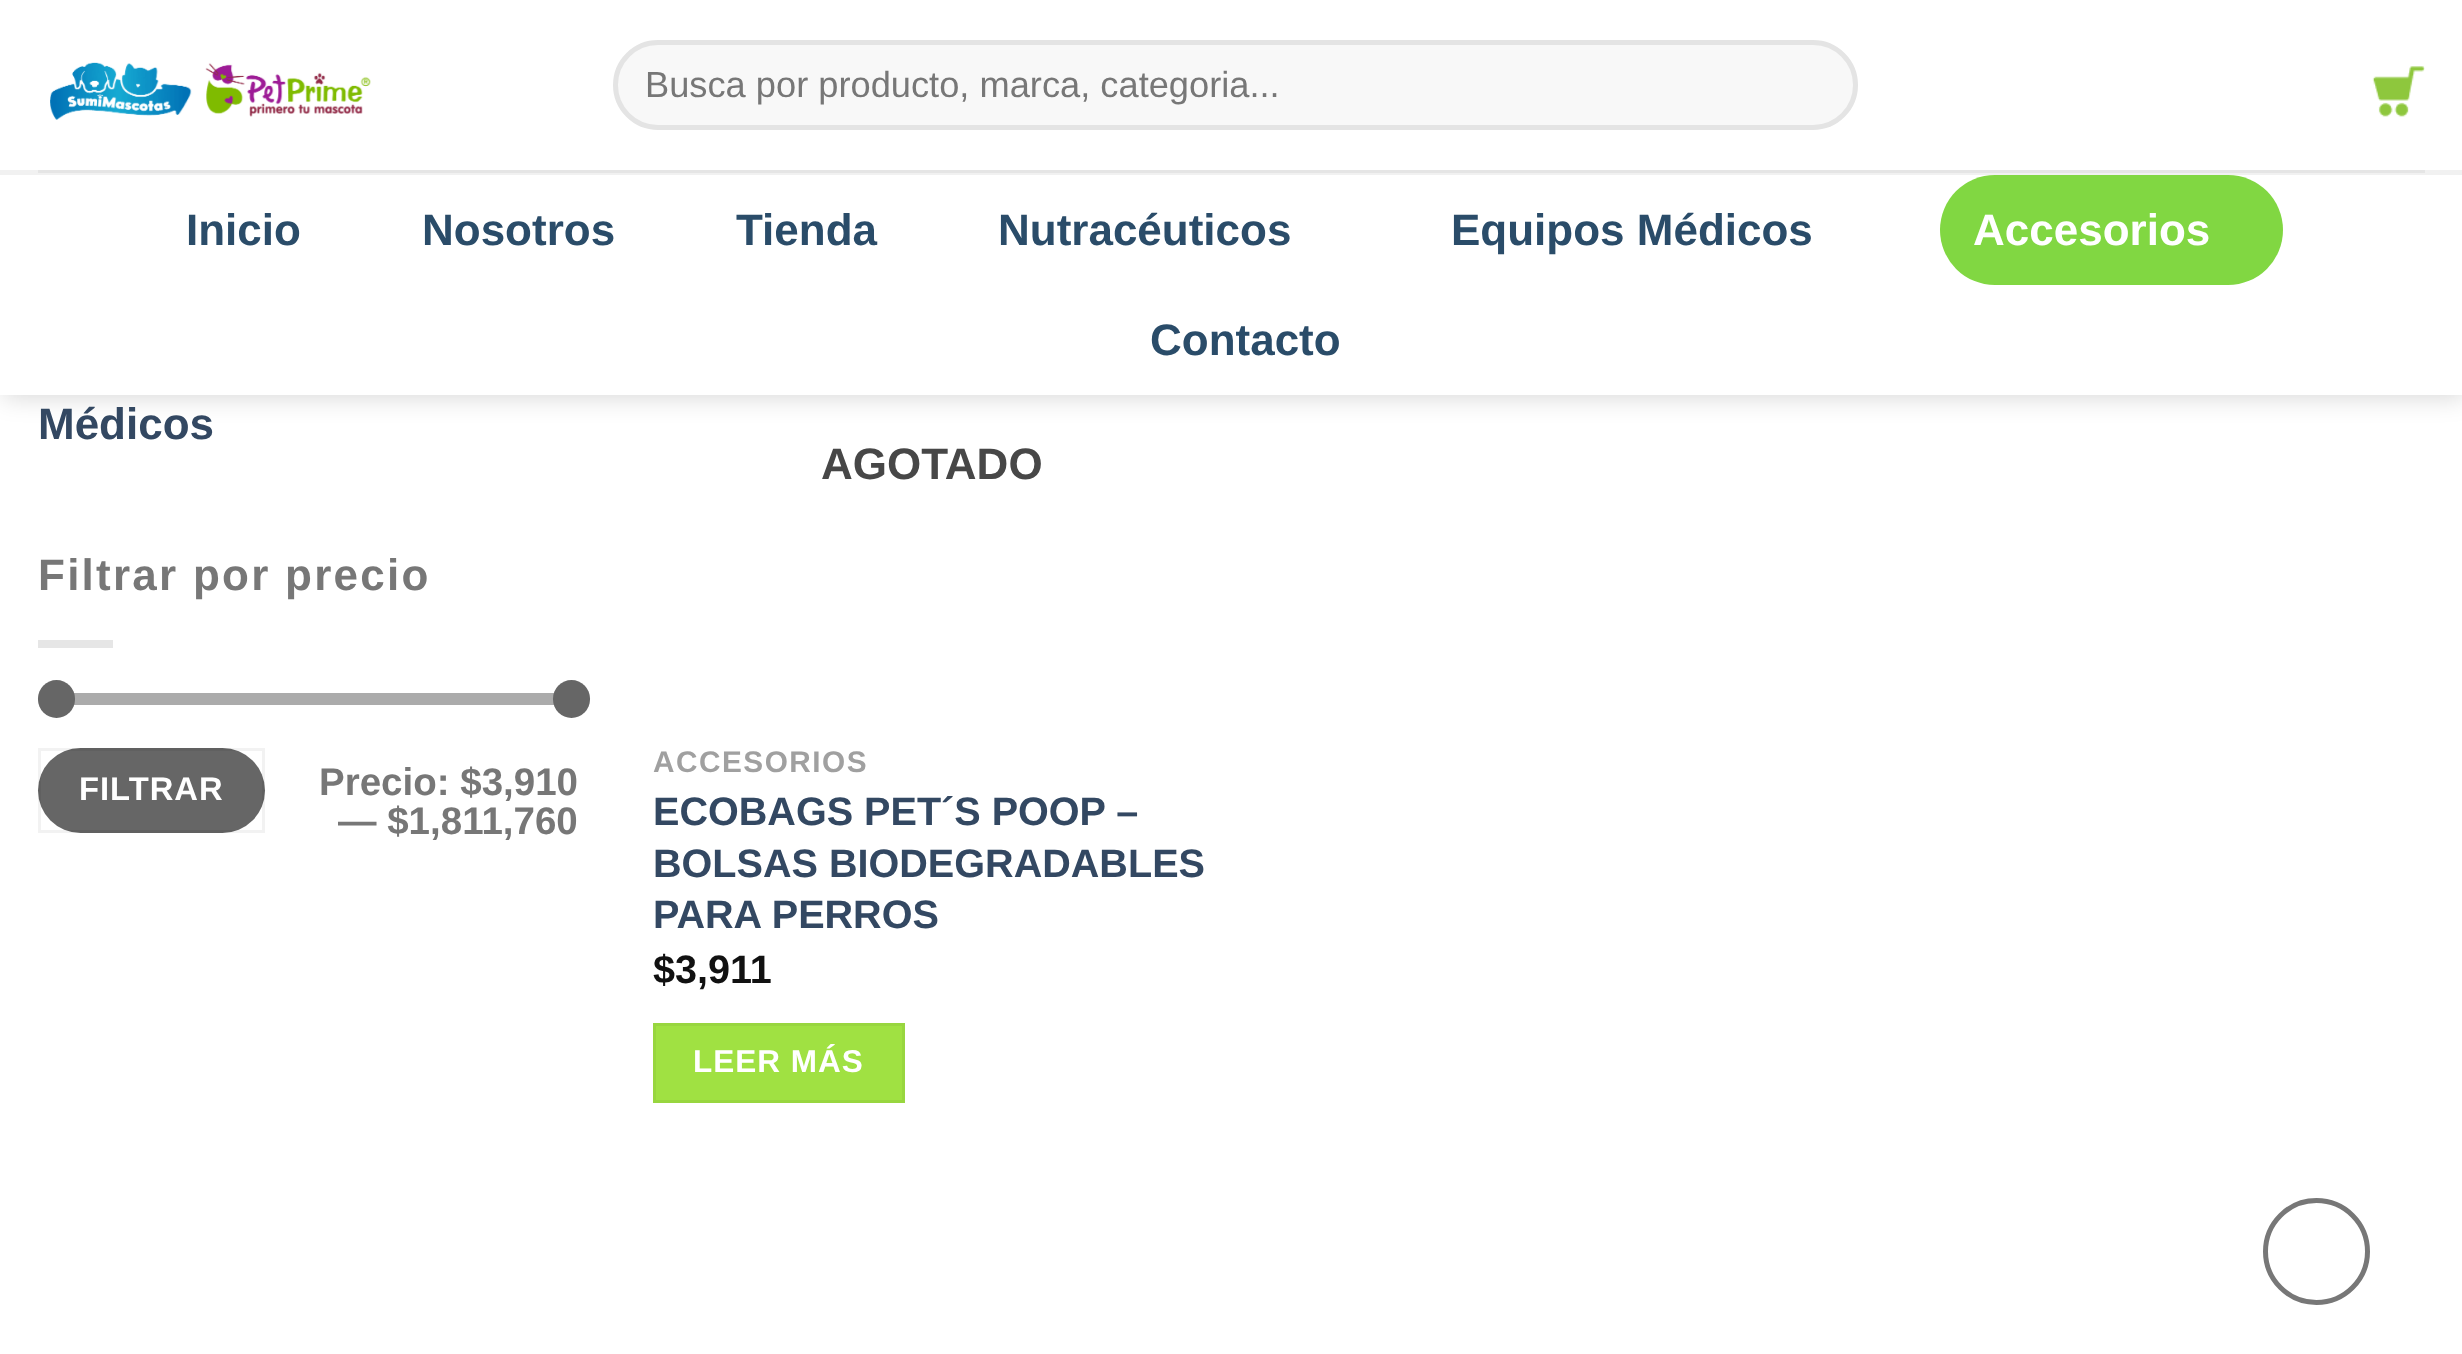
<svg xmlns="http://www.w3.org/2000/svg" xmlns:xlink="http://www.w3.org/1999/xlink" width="2462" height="1354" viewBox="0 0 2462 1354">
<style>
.cls-1{font:36.25px Liberation Sans;fill:#777777}
.cls-2{font:bold 44px Liberation Sans;fill:#2a4c69}
.cls-3{font:bold 44px Liberation Sans;fill:#ffffff}
.cls-4{font:bold 44px Liberation Sans;fill:#334862}
.cls-5{font:bold 44px Liberation Sans;letter-spacing:2.25px;fill:#777777}
.cls-6{font:bold 32.75px Liberation Sans;letter-spacing:1px;fill:#ffffff}
.cls-7{font:bold 38.5px Liberation Sans;fill:#777777}
.cls-8{font:bold 44px Liberation Sans;fill:#474747}
.cls-9{font:bold 29.75px Liberation Sans;letter-spacing:1.5px;fill:#a0a0a0}
.cls-10{font:bold 39.6px Liberation Sans;fill:#334862}
.cls-11{font:bold 39.6px Liberation Sans;fill:#111111}
.cls-12{font:bold 31.5px Liberation Sans;letter-spacing:1px;fill:#ffffff}
</style>
<rect width="100%" height="100%" fill="#ffffff"/>
<rect fill="#000000" fill-opacity="0.15" filter="blur(12.5px)" x="3" y="3" width="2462" height="395"/>
<rect fill="#ffffff" x="0" y="0" width="2462" height="395"/>
<rect fill="#f1f1f1" x="0" y="170" width="2462" height="5"/>
<image xlink:href="image0.png" x="50" y="62" width="321" height="58"/>
<rect fill="#f8f8f8" stroke="#e4e4e4" stroke-width="5" x="615.5" y="42.5" width="1240" height="85" rx="42.5"/>
<image xlink:href="image1.png" x="2372" y="66" width="53" height="51"/>
<rect fill="#e5e5e5" x="38" y="170" width="2387" height="3"/>
<rect fill="#81d742" x="1940" y="175" width="343" height="110" rx="55"/>
<rect fill="#e6e6e6" x="38" y="640" width="75" height="8"/>
<rect fill="#f1f1f1" x="38" y="693" width="540" height="12" rx="6"/>
<rect fill="#666666" fill-opacity="0.5" x="38" y="693" width="540" height="12" rx="6"/>
<rect fill="#666666" x="38" y="680" width="37" height="38" rx="18.5"/>
<rect fill="#666666" x="553" y="680" width="37" height="38" rx="18.5"/>
<rect fill="#666666" x="38" y="748" width="227" height="85" rx="42.5"/>
<rect fill="none" stroke="#000000" stroke-opacity="0.05" stroke-width="3" x="39.5" y="749.5" width="224" height="82"/>
<rect fill="#a0e142" stroke="#98d63f" stroke-width="3" x="654.5" y="1024.5" width="249" height="77"/>
<circle fill="none" stroke="#777777" stroke-width="5" cx="2316.5" cy="1251.5" r="51"/>
<text class="cls-1" x="645" y="97">Busca por producto, marca, categoria...</text>
<text class="cls-2" x="186" y="245">Inicio</text>
<text class="cls-2" x="422" y="245">Nosotros</text>
<text class="cls-2" x="736" y="245">Tienda</text>
<text class="cls-2" x="998" y="245">Nutracéuticos</text>
<text class="cls-2" x="1451" y="245">Equipos Médicos</text>
<text class="cls-3" x="1973" y="245">Accesorios</text>
<text class="cls-2" x="1150" y="355">Contacto</text>
<text class="cls-4" x="38" y="439">Médicos</text>
<text class="cls-5" x="38" y="590">Filtrar por precio</text>
<text class="cls-6" x="79" y="800">FILTRAR</text>
<text class="cls-7" x="319" y="795">Precio: $3,910</text>
<text class="cls-7" x="338" y="834">— $1,811,760</text>
<text class="cls-8" x="821" y="479">AGOTADO</text>
<text class="cls-9" x="653" y="772">ACCESORIOS</text>
<text class="cls-10"><tspan x="653" y="825">ECOBAGS PET´S POOP –</tspan><tspan x="653" y="877">BOLSAS BIODEGRADABLES</tspan><tspan x="653" y="928">PARA PERROS</tspan></text>
<text class="cls-11" x="653" y="983">$3,911</text>
<text class="cls-12" x="693" y="1072">LEER MÁS</text>
</svg>
